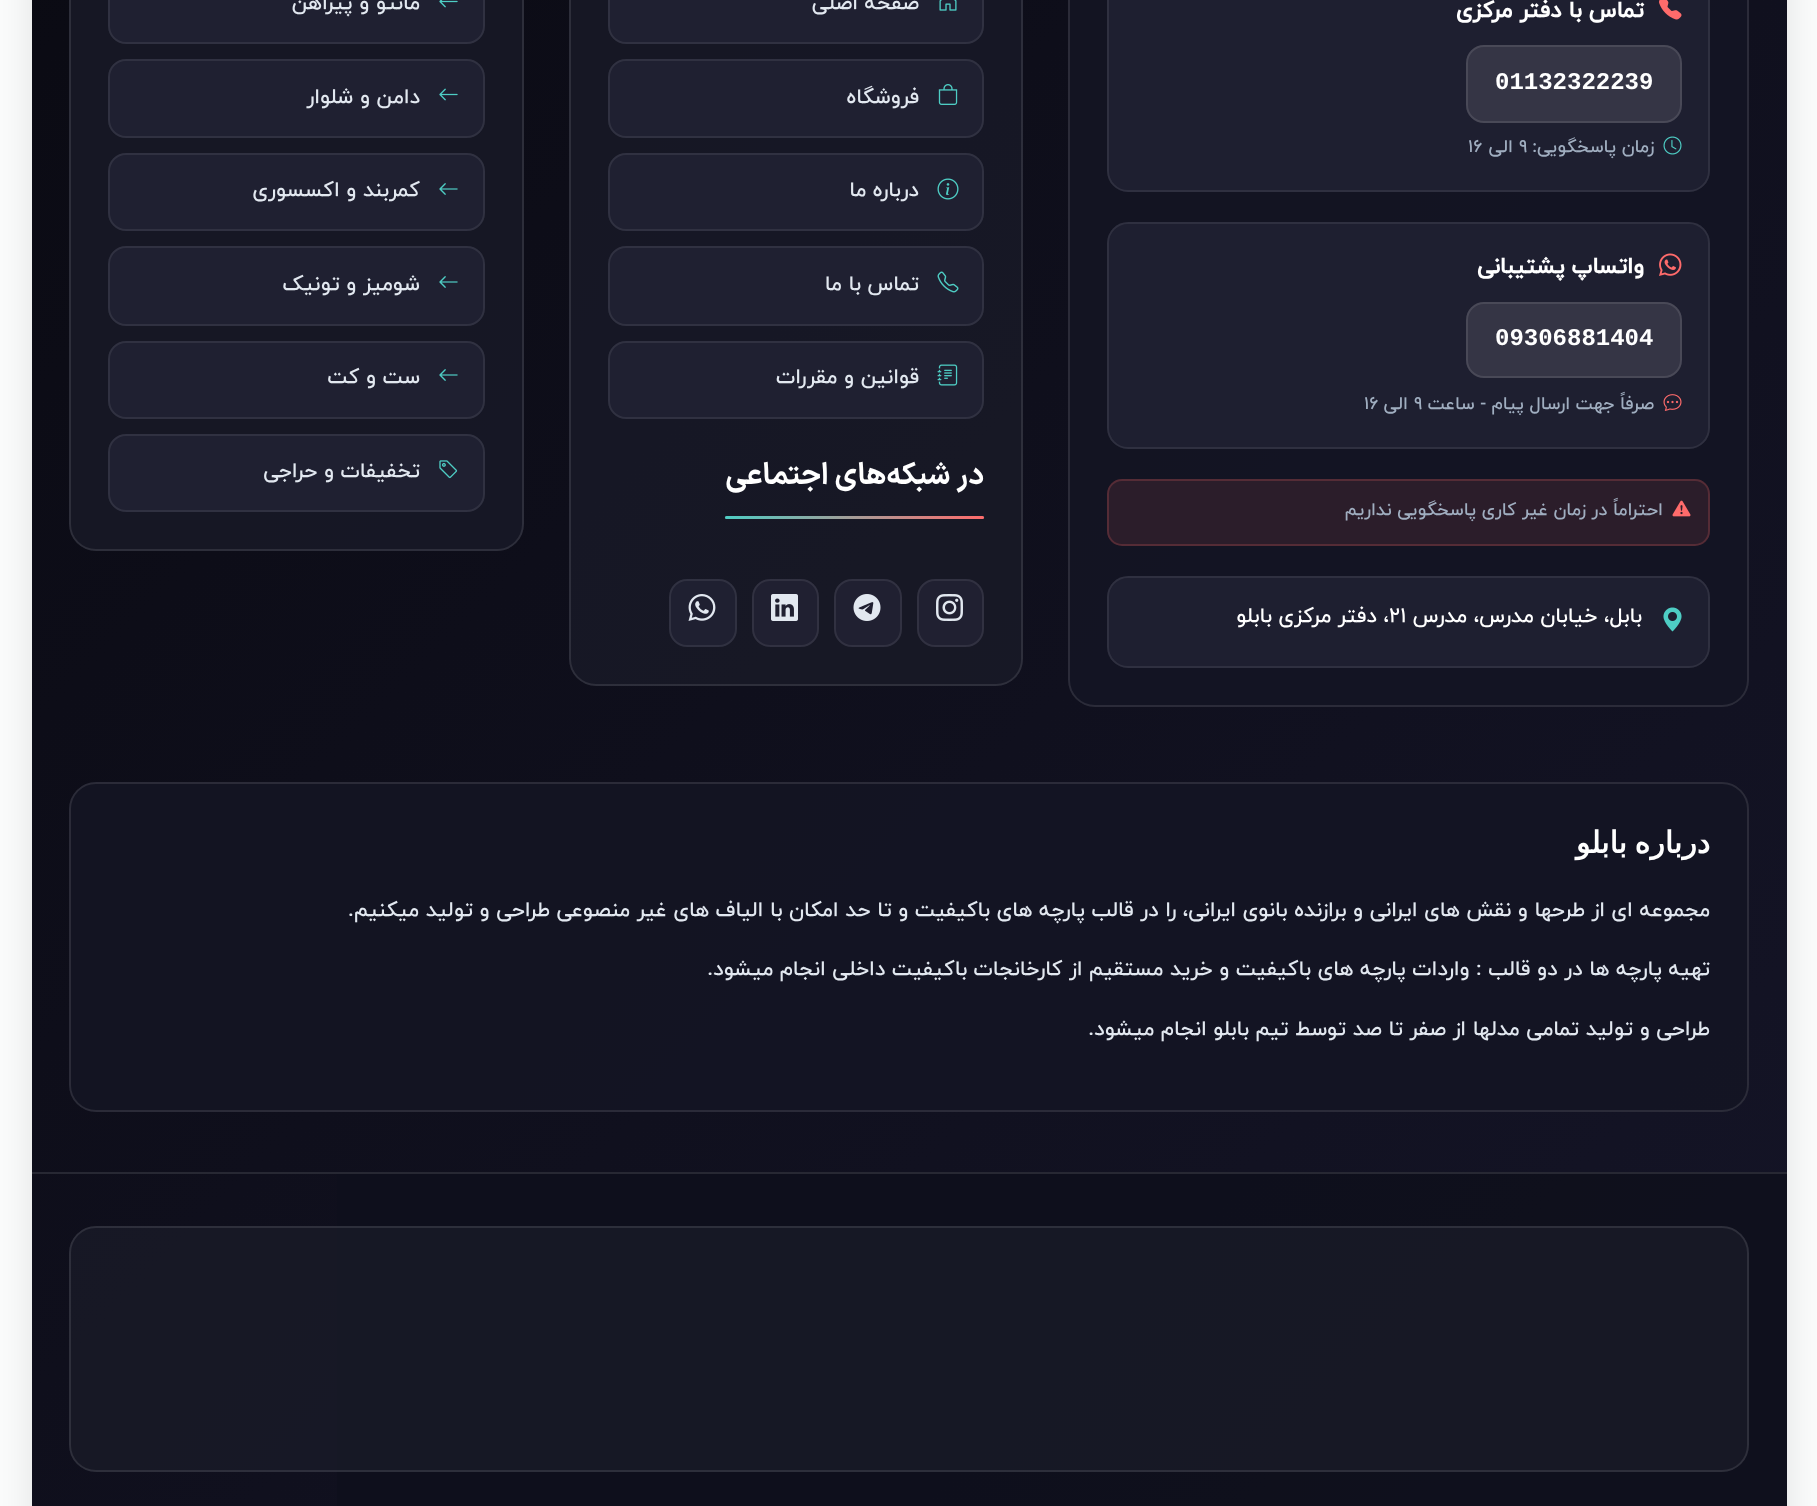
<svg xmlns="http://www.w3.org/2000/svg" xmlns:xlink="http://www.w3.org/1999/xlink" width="1817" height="1506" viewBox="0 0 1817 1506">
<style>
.cls-1{font:bold 22.5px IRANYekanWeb;direction:rtl;fill:#ffffff}
.cls-2{font:bold 24px Liberation Mono;fill:#ffffff}
.cls-3{font:500 18px IRANYekanWeb;direction:rtl;fill:#a0aec0}
.cls-4{font:500 18px IRANYekanWeb;fill:#a0aec0}
.cls-5{font:500 21px IRANYekanWeb;direction:rtl;fill:#ffffff}
.cls-6{font:500 21px IRANYekanWeb;fill:#ffffff}
.cls-7{font:500 21px IRANYekanWeb;direction:rtl;fill:#e2e8f0}
.cls-8{font:bold 30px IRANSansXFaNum;direction:rtl;fill:#ffffff}
.cls-9{font:bold 30px DejaVu Sans;direction:rtl;fill:#ffffff}
</style>
<defs>
<linearGradient id="g1" gradientUnits="userSpaceOnUse" x1="-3.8" y1="-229" x2="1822" y2="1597"><stop offset="0" stop-color="#0a0a12"/><stop offset="1" stop-color="#151528"/></linearGradient>
<linearGradient id="g2" gradientUnits="userSpaceOnUse" x1="984" y1="518" x2="725" y2="518"><stop offset="0" stop-color="#ff6b6b"/><stop offset="1" stop-color="#4ecdc4"/></linearGradient>
</defs>
<rect width="100%" height="100%" fill="#fbfcfc"/>
<rect fill="#000000" fill-opacity="0.1" filter="blur(19px)" x="32" y="-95" width="1755" height="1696" rx="38"/>
<rect fill="url(#g1)" x="32" y="0" width="1755" height="1506"/>
<rect fill="#141523" fill-opacity="0.9" x="1068" y="-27" width="681" height="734" rx="27"/>
<rect fill="none" stroke="#ffffff" stroke-opacity="0.1" stroke-width="2" x="1069" y="-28" width="679" height="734" rx="26"/>
<rect fill="#1e1f30" x="1107" y="-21" width="603" height="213" rx="21"/>
<rect fill="none" stroke="#ffffff" stroke-opacity="0.08" stroke-width="2" x="1108" y="-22" width="601" height="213" rx="20"/>
<image xlink:href="image0.png" x="1659" y="0" width="23" height="20"/>
<rect fill="#353545" x="1466" y="45" width="216" height="78" rx="18"/>
<rect fill="none" stroke="#ffffff" stroke-opacity="0.1" stroke-width="2" x="1467" y="46" width="214" height="76" rx="17"/>
<image xlink:href="image1.png" x="1663" y="136" width="19" height="19"/>
<rect fill="#1e1f30" x="1107" y="222" width="603" height="227" rx="21"/>
<rect fill="none" stroke="#ffffff" stroke-opacity="0.08" stroke-width="2" x="1108" y="223" width="601" height="225" rx="20"/>
<image xlink:href="image2.png" x="1659" y="253" width="23" height="23"/>
<rect fill="#353545" x="1466" y="302" width="216" height="76" rx="18"/>
<rect fill="none" stroke="#ffffff" stroke-opacity="0.1" stroke-width="2" x="1467" y="303" width="214" height="74" rx="17"/>
<image xlink:href="image3.png" x="1663" y="394" width="19" height="17"/>
<rect fill="#2b1d2a" x="1107" y="479" width="603" height="67" rx="15"/>
<rect fill="none" stroke="#ff6b6b" stroke-opacity="0.2" stroke-width="2" x="1108" y="480" width="601" height="65" rx="14"/>
<image xlink:href="image4.png" x="1672" y="500" width="19" height="17"/>
<rect fill="#1e1f30" x="1107" y="576" width="603" height="92" rx="21"/>
<rect fill="none" stroke="#ffffff" stroke-opacity="0.08" stroke-width="2" x="1108" y="577" width="601" height="90" rx="20"/>
<image xlink:href="image5.png" x="1663" y="607" width="19" height="25"/>
<rect fill="#191a28" fill-opacity="0.8" x="569" y="-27" width="454" height="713" rx="27"/>
<rect fill="none" stroke="#ffffff" stroke-opacity="0.1" stroke-width="2" x="570" y="-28" width="452" height="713" rx="26"/>
<rect fill="#1f2031" x="608" y="-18" width="376" height="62" rx="18"/>
<rect fill="none" stroke="#ffffff" stroke-opacity="0.08" stroke-width="2" x="609" y="-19" width="374" height="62" rx="17"/>
<image xlink:href="image6.png" x="939" y="0" width="18" height="11"/>
<rect fill="#1f2031" x="608" y="59" width="376" height="79" rx="18"/>
<rect fill="none" stroke="#ffffff" stroke-opacity="0.08" stroke-width="2" x="609" y="60" width="374" height="77" rx="17"/>
<image xlink:href="image7.png" x="938" y="84" width="20" height="21"/>
<rect fill="#1f2031" x="608" y="153" width="376" height="78" rx="18"/>
<rect fill="none" stroke="#ffffff" stroke-opacity="0.08" stroke-width="2" x="609" y="154" width="374" height="76" rx="17"/>
<image xlink:href="image8.png" x="937" y="178" width="22" height="22"/>
<rect fill="#1f2031" x="608" y="246" width="376" height="80" rx="18"/>
<rect fill="none" stroke="#ffffff" stroke-opacity="0.08" stroke-width="2" x="609" y="247" width="374" height="78" rx="17"/>
<image xlink:href="image9.png" x="937" y="271" width="22" height="22"/>
<rect fill="#1f2031" x="608" y="341" width="376" height="78" rx="18"/>
<rect fill="none" stroke="#ffffff" stroke-opacity="0.08" stroke-width="2" x="609" y="342" width="374" height="76" rx="17"/>
<image xlink:href="image10.png" x="937" y="364" width="21" height="22"/>
<rect fill="#3a3a46" x="725" y="516" width="259" height="3"/>
<rect fill="url(#g2)" x="725" y="516" width="259" height="3" rx="1.5"/>
<rect fill="#202031" x="917" y="579" width="67" height="68" rx="18"/>
<rect fill="none" stroke="#ffffff" stroke-opacity="0.08" stroke-width="2" x="918" y="580" width="65" height="66" rx="17"/>
<image xlink:href="image11.png" x="936" y="594" width="27" height="27"/>
<rect fill="#202031" x="834" y="579" width="68" height="68" rx="18"/>
<rect fill="none" stroke="#ffffff" stroke-opacity="0.08" stroke-width="2" x="835" y="580" width="66" height="66" rx="17"/>
<image xlink:href="image12.png" x="853" y="594" width="28" height="27"/>
<rect fill="#202031" x="752" y="579" width="67" height="68" rx="18"/>
<rect fill="none" stroke="#ffffff" stroke-opacity="0.08" stroke-width="2" x="753" y="580" width="65" height="66" rx="17"/>
<image xlink:href="image13.png" x="771" y="594" width="27" height="27"/>
<rect fill="#1f2031" x="669" y="579" width="68" height="68" rx="18"/>
<rect fill="none" stroke="#ffffff" stroke-opacity="0.08" stroke-width="2" x="670" y="580" width="66" height="66" rx="17"/>
<image xlink:href="image14.png" x="688" y="594" width="28" height="27"/>
<rect fill="#191a28" fill-opacity="0.8" x="69" y="-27" width="455" height="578" rx="27"/>
<rect fill="none" stroke="#ffffff" stroke-opacity="0.1" stroke-width="2" x="70" y="-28" width="453" height="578" rx="26"/>
<rect fill="#1f2031" x="108" y="-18" width="377" height="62" rx="18"/>
<rect fill="none" stroke="#ffffff" stroke-opacity="0.08" stroke-width="2" x="109" y="-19" width="375" height="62" rx="17"/>
<image xlink:href="image15.png" x="439" y="0" width="19" height="8"/>
<rect fill="#1f2031" x="108" y="59" width="377" height="79" rx="18"/>
<rect fill="none" stroke="#ffffff" stroke-opacity="0.08" stroke-width="2" x="109" y="60" width="375" height="77" rx="17"/>
<image xlink:href="image16.png" x="439" y="88" width="19" height="13"/>
<rect fill="#1f2031" x="108" y="153" width="377" height="78" rx="18"/>
<rect fill="none" stroke="#ffffff" stroke-opacity="0.08" stroke-width="2" x="109" y="154" width="375" height="76" rx="17"/>
<image xlink:href="image17.png" x="439" y="183" width="19" height="12"/>
<rect fill="#1f2031" x="108" y="246" width="377" height="80" rx="18"/>
<rect fill="none" stroke="#ffffff" stroke-opacity="0.08" stroke-width="2" x="109" y="247" width="375" height="78" rx="17"/>
<image xlink:href="image17.png" x="439" y="276" width="19" height="12"/>
<rect fill="#1f2031" x="108" y="341" width="377" height="78" rx="18"/>
<rect fill="none" stroke="#ffffff" stroke-opacity="0.08" stroke-width="2" x="109" y="342" width="375" height="76" rx="17"/>
<image xlink:href="image17.png" x="439" y="369" width="19" height="12"/>
<rect fill="#1f2031" x="108" y="434" width="377" height="78" rx="18"/>
<rect fill="none" stroke="#ffffff" stroke-opacity="0.08" stroke-width="2" x="109" y="435" width="375" height="76" rx="17"/>
<image xlink:href="image18.png" x="439" y="460" width="19" height="19"/>
<rect fill="#141523" fill-opacity="0.9" x="69" y="782" width="1680" height="330" rx="27"/>
<rect fill="none" stroke="#ffffff" stroke-opacity="0.1" stroke-width="2" x="70" y="783" width="1678" height="328" rx="26"/>
<rect fill="#0f101c" fill-opacity="0.95" x="337" y="1174" width="1450" height="332"/>
<rect fill="#272833" x="32" y="1172" width="1755" height="2"/>
<rect fill="#191a28" fill-opacity="0.8" x="69" y="1226" width="1680" height="246" rx="27"/>
<rect fill="none" stroke="#ffffff" stroke-opacity="0.1" stroke-width="2" x="70" y="1227" width="1678" height="244" rx="26"/>
<text class="cls-1" x="1644" y="17">تماس با دفتر مرکزی</text>
<text class="cls-2" x="1495" y="89">01132322239</text>
<text class="cls-3" x="1654" y="152">زمان پاسخگویی:</text>
<text class="cls-4" x="1519" y="152">۹</text>
<text class="cls-3" x="1513" y="152">الی</text>
<text class="cls-4" x="1468" y="152">۱۶</text>
<text class="cls-1" x="1644" y="273">واتساپ پشتیبانی</text>
<text class="cls-2" x="1495" y="345">09306881404</text>
<text class="cls-3" x="1654" y="409">صرفاً جهت ارسال پیام - ساعت</text>
<text class="cls-4" x="1414" y="409">۹</text>
<text class="cls-3" x="1408" y="409">الی</text>
<text class="cls-4" x="1364" y="409">۱۶</text>
<text class="cls-3" x="1663" y="515">احتراماً در زمان غیر کاری پاسخگویی نداریم</text>
<text class="cls-5" x="1642" y="622">بابل، خیابان مدرس، مدرس</text>
<text class="cls-6" x="1389" y="622">۲۱</text>
<text class="cls-5" x="1389" y="622">، دفتر مرکزی بابلو</text>
<text class="cls-7" x="919" y="9">صفحه اصلی</text>
<text class="cls-7" x="919" y="103">فروشگاه</text>
<text class="cls-7" x="919" y="196">درباره ما</text>
<text class="cls-7" x="919" y="290">تماس با ما</text>
<text class="cls-7" x="919" y="383">قوانین و مقررات</text>
<text class="cls-8" x="984" y="484">در شبکه‌های اجتماعی</text>
<text class="cls-7" x="420" y="9">مانتو و پیراهن</text>
<text class="cls-7" x="420" y="103">دامن و شلوار</text>
<text class="cls-7" x="420" y="196">کمربند و اکسسوری</text>
<text class="cls-7" x="420" y="290">شومیز و تونیک</text>
<text class="cls-7" x="420" y="383">ست و کت</text>
<text class="cls-7" x="420" y="477">تخفیفات و حراجی</text>
<text class="cls-9" x="1710" y="853" word-spacing="-2">درباره بابلو</text>
<text class="cls-7" x="1710" y="916">مجموعه ای از طرحها و نقش های ایرانی و برازنده بانوی ایرانی، را در قالب پارچه های باکیفیت و تا حد امکان با الیاف های غیر منصوعی طراحی و تولید میکنیم.</text>
<text class="cls-7" x="1710" y="975">تهیه پارچه ها در دو قالب : واردات پارچه های باکیفیت و خرید مستقیم از کارخانجات باکیفیت داخلی انجام میشود.</text>
<text class="cls-7" x="1710" y="1035">طراحی و تولید تمامی مدلها از صفر تا صد توسط تیم بابلو انجام میشود.</text>
</svg>
